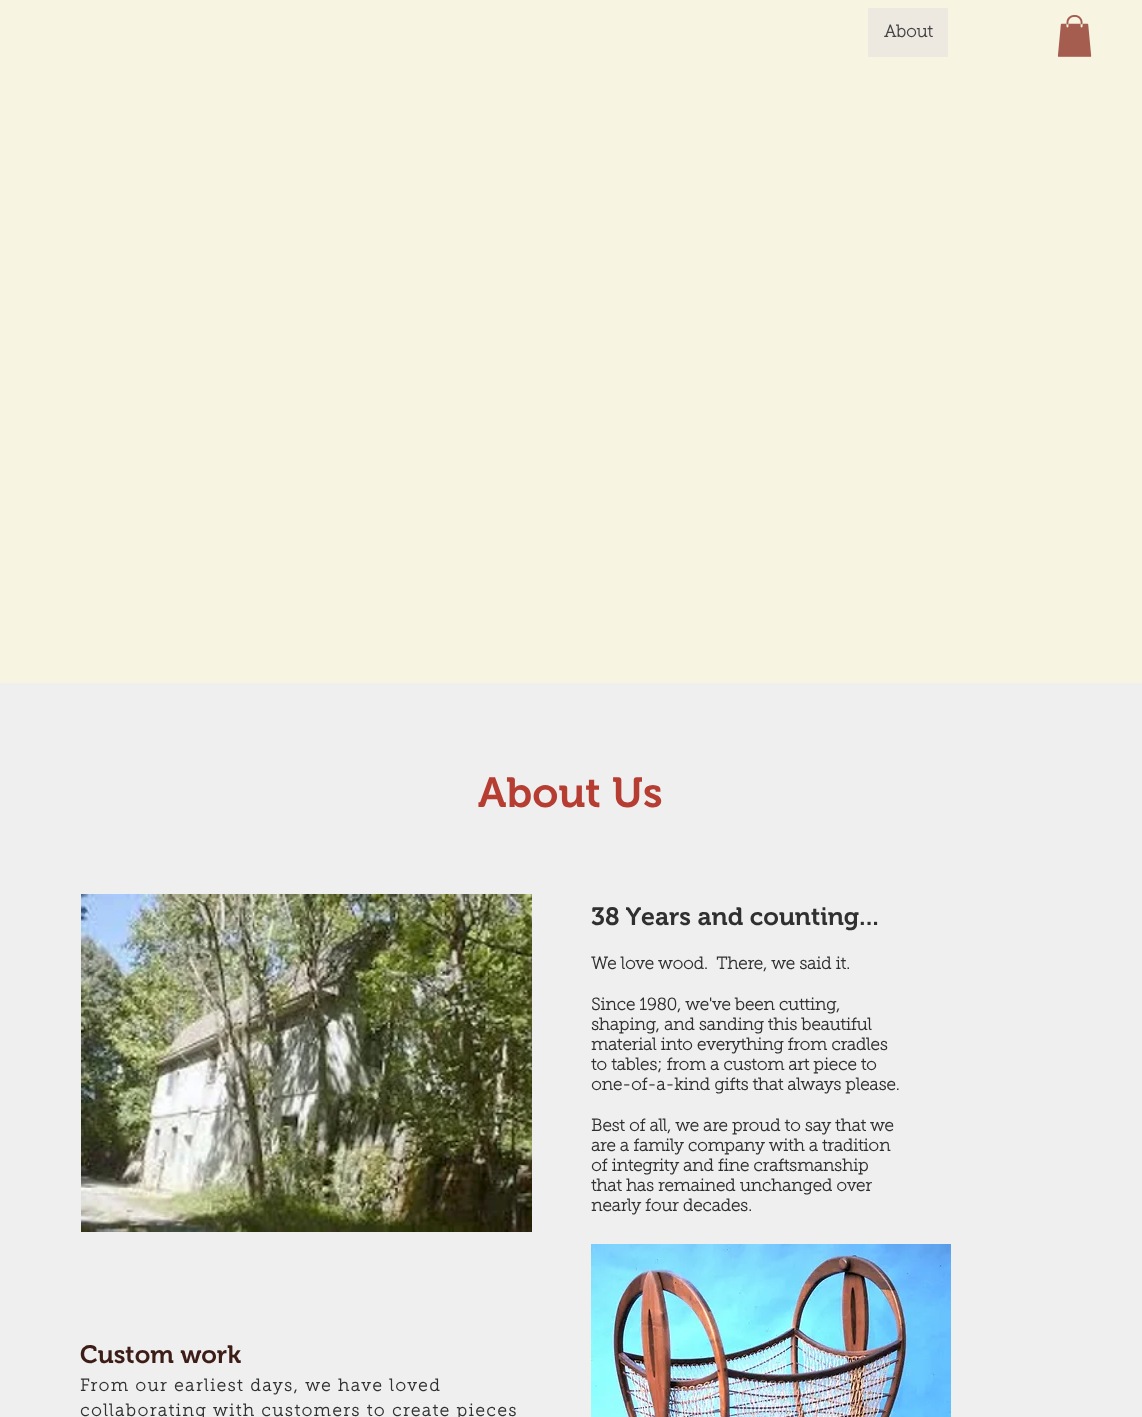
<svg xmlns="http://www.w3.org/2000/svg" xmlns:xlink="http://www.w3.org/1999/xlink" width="1142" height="1417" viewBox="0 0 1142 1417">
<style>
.cls-1{font:bold 17px 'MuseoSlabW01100';fill:#444444}
.cls-2{font:600 42px 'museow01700';fill:#b63d32}
.cls-3{font:600 25px 'museow01700';fill:#303030}
.cls-4{font:bold 17px 'MuseoSlabW01100';fill:#303030}
.cls-5{font:600 25px 'museow01700';fill:#3c1d17}
.cls-6{font:bold 17px 'MuseoSlabW01100';letter-spacing:1.7px;fill:#303030}
</style>
<rect width="100%" height="100%" fill="#efefef"/>
<rect fill="#f7f5e1" x="0" y="0" width="1142" height="683"/>
<rect fill="#ede9e1" x="868" y="8" width="80" height="49"/>
<image xlink:href="image0.png" x="1057" y="15" width="35" height="42"/>
<image xlink:href="image1.png" x="81" y="894" width="451" height="338"/>
<image xlink:href="image2.png" x="591" y="1244" width="360" height="173"/>
<text class="cls-1" x="884" y="37">About</text>
<text class="cls-2" x="478" y="807">About Us</text>
<text class="cls-3" x="591" y="925">38 Years and counting...</text>
<text class="cls-4" xml:space="preserve" x="591" y="969">We love wood.  There, we said it.</text>
<text class="cls-4"><tspan x="591" y="1010">Since 1980, we've been cutting,</tspan><tspan x="591" y="1030">shaping, and sanding this beautiful</tspan><tspan x="591" y="1050">material into everything from cradles</tspan><tspan x="591" y="1070">to tables; from a custom art piece to</tspan><tspan x="591" y="1090">one-of-a-kind gifts that always please.</tspan></text>
<text class="cls-4"><tspan x="591" y="1131">Best of all, we are proud to say that we</tspan><tspan x="591" y="1151">are a family company with a tradition</tspan><tspan x="591" y="1171">of integrity and fine craftsmanship</tspan><tspan x="591" y="1191">that has remained unchanged over</tspan><tspan x="591" y="1211">nearly four decades.</tspan></text>
<text class="cls-5" x="80" y="1363">Custom work</text>
<text class="cls-6"><tspan x="80" y="1391">From our earliest days, we have loved</tspan><tspan x="80" y="1416">collaborating with customers to create pieces</tspan></text>
</svg>
